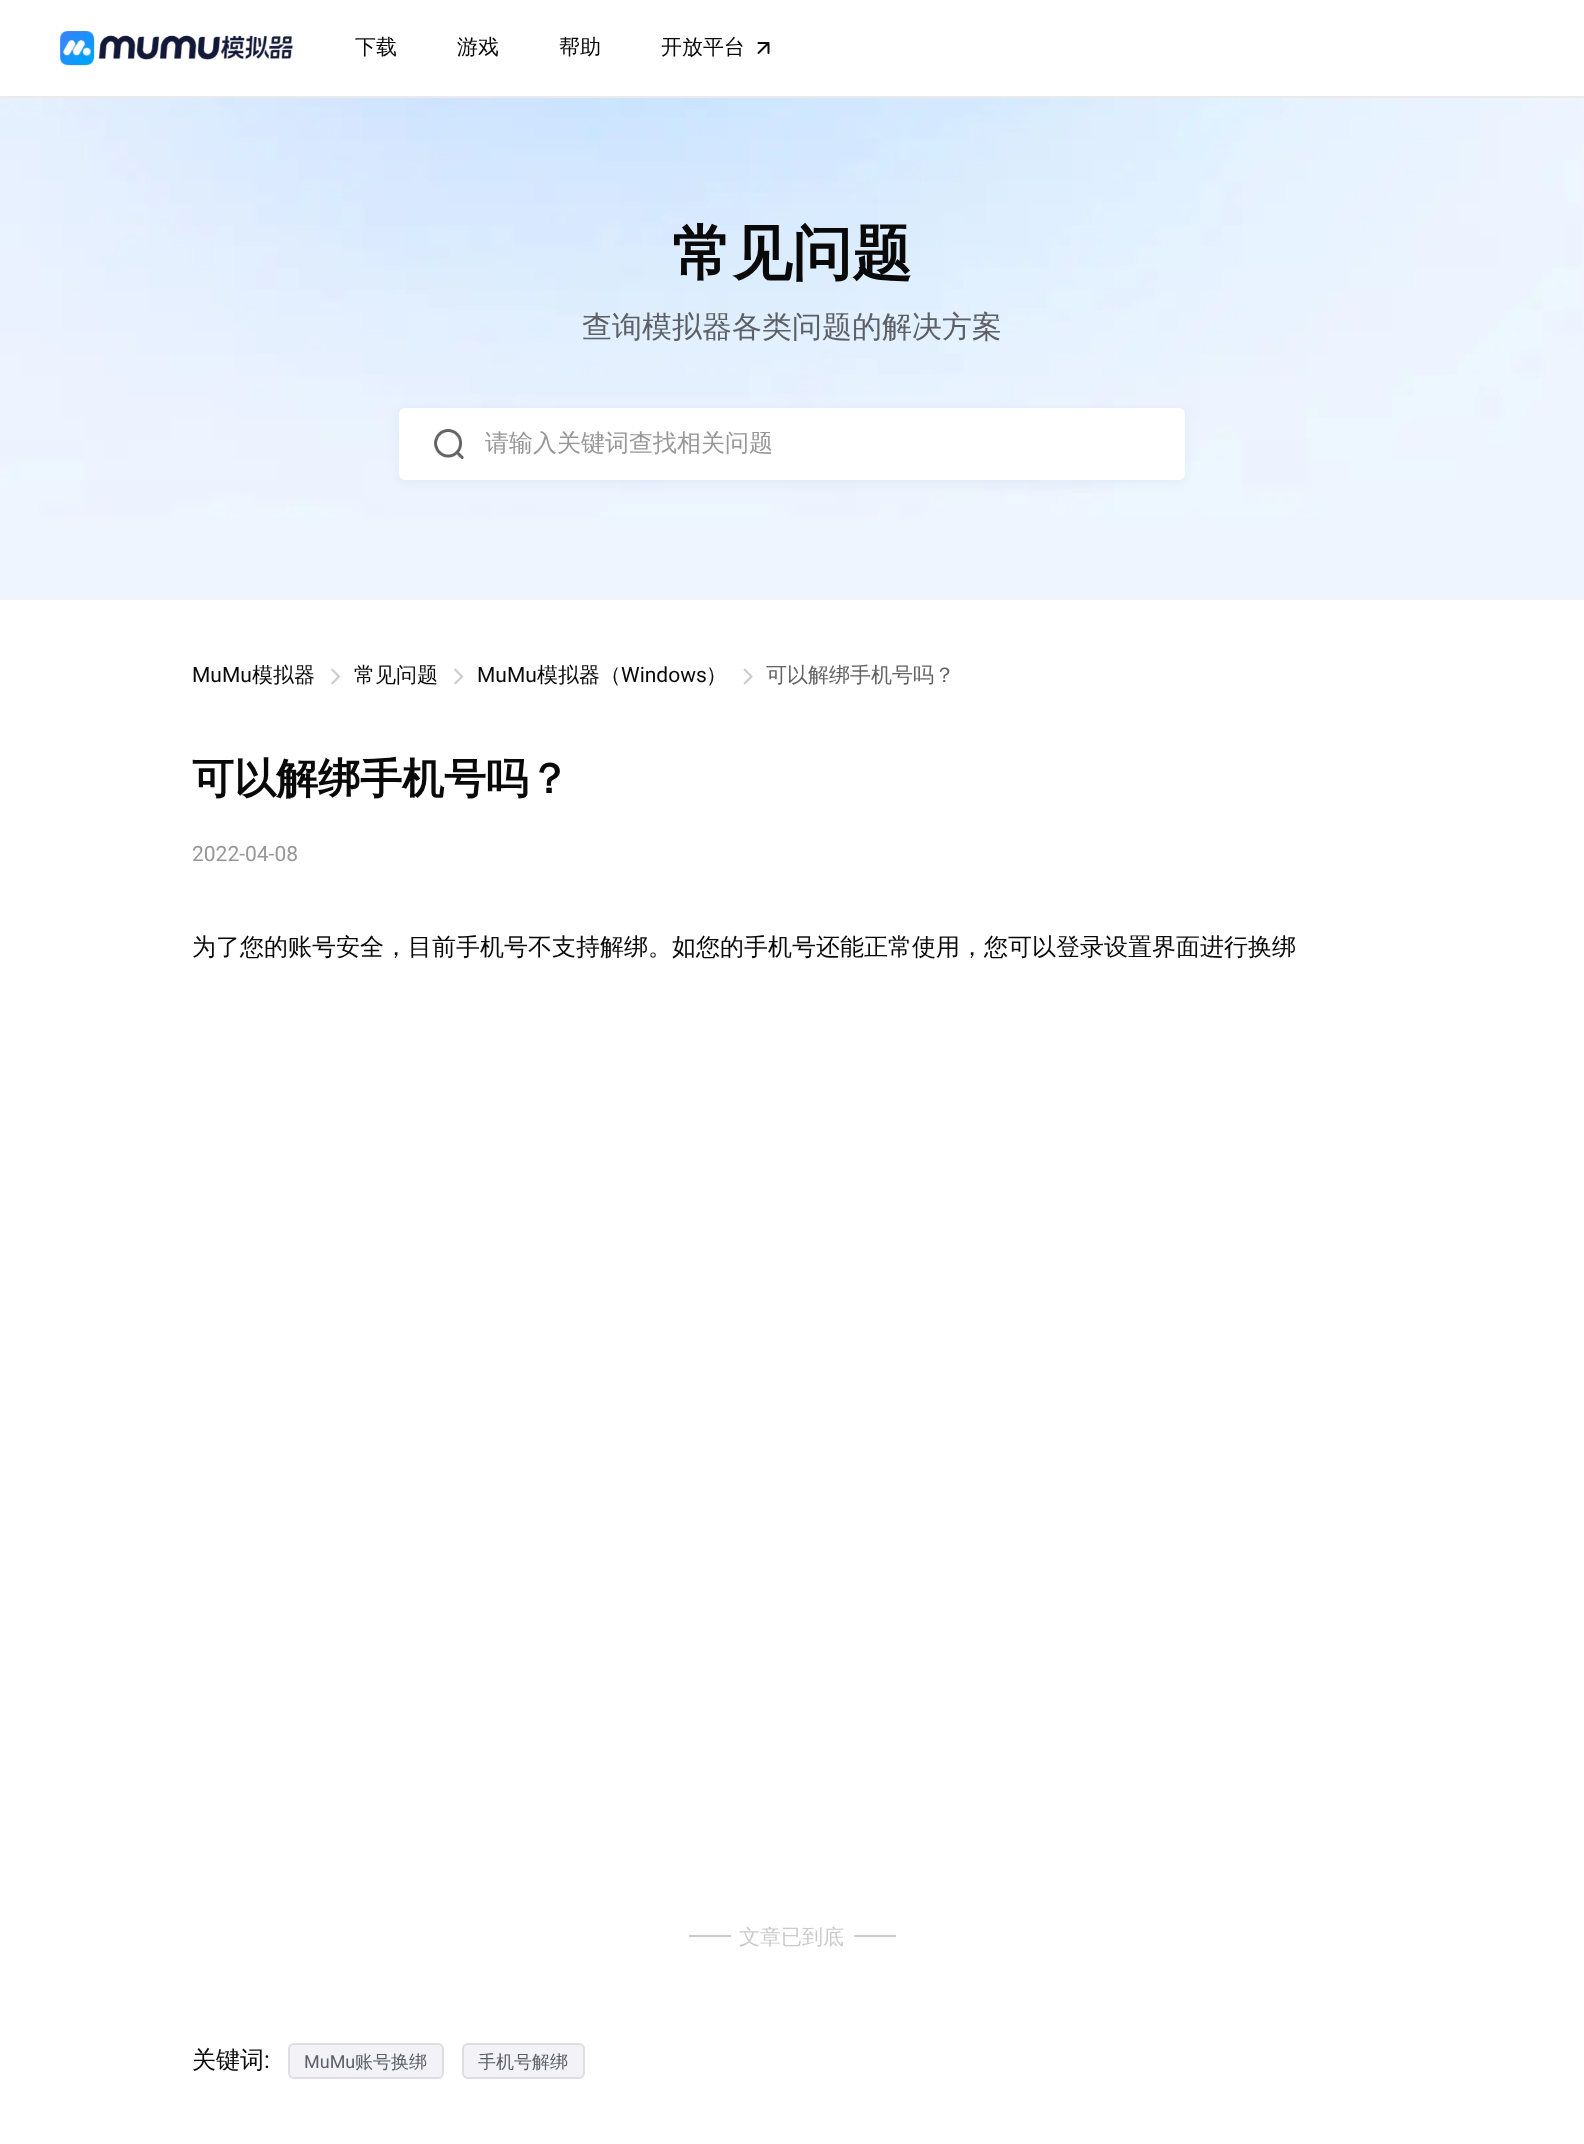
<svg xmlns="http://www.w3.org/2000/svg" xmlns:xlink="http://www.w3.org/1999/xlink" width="1584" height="2144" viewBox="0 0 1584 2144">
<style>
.cls-1{font:500 21px WenQuanYi Zen Hei;fill:#09090a}
.cls-2{font:bold 60px WenQuanYi Zen Hei;fill:#09090a}
.cls-3{font:500 30px WenQuanYi Zen Hei;fill:#5c5f64}
.cls-4{font:500 24px WenQuanYi Zen Hei;fill:#979798}
.cls-5{font:21px Roboto;fill:#09090a}
.cls-6{font:500 21px WenQuanYi Zen Hei;fill:#636364}
.cls-7{font:bold 42px WenQuanYi Zen Hei;fill:#09090a}
.cls-8{font:21px Roboto;fill:#979798}
.cls-9{font:500 24px WenQuanYi Zen Hei;fill:#09090a}
.cls-10{font:500 21px WenQuanYi Zen Hei;fill:#cbcbcb}
.cls-11{font:24px Roboto;fill:#09090a}
.cls-12{font:18px Roboto;fill:#5c5f64}
.cls-13{font:500 18px WenQuanYi Zen Hei;fill:#5c5f64}
</style>
<rect width="100%" height="100%" fill="#ffffff"/>
<rect fill="#eaeaea" x="0" y="96" width="1584" height="2"/>
<image xlink:href="image0.png" x="60" y="31" width="234" height="35"/>
<image xlink:href="image1.png" x="757" y="42" width="13" height="12"/>
<rect fill="#eef5ff" x="0" y="98" width="1584" height="502"/>
<image xlink:href="image2.png" x="0" y="98" width="1581" height="420"/>
<rect fill="#6c8ab6" fill-opacity="0.1" filter="blur(6px)" x="399" y="411" width="786" height="72" rx="6"/>
<rect fill="#ffffff" stroke="#ffffff" stroke-width="2" x="400" y="409" width="784" height="70" rx="5"/>
<image xlink:href="image3.png" x="434" y="429" width="30" height="30"/>
<image xlink:href="image4.png" x="331" y="668" width="10" height="17"/>
<image xlink:href="image4.png" x="454" y="668" width="10" height="17"/>
<image xlink:href="image5.png" x="743" y="668" width="10" height="17"/>
<rect fill="#cbcbcb" x="689" y="1935" width="42" height="2"/>
<rect fill="#cbcbcb" x="854" y="1935" width="42" height="2"/>
<rect fill="#f2f2f7" x="288" y="2043" width="156" height="36" rx="6"/>
<rect fill="none" stroke="#2f2f30" stroke-opacity="0.1" stroke-width="2" x="289" y="2044" width="154" height="34" rx="5"/>
<rect fill="#f2f2f7" x="462" y="2043" width="123" height="36" rx="6"/>
<rect fill="none" stroke="#2f2f30" stroke-opacity="0.1" stroke-width="2" x="463" y="2044" width="121" height="34" rx="5"/>
<text class="cls-1" x="355" y="54">下载</text>
<text class="cls-1" x="457" y="54">游戏</text>
<text class="cls-1" x="559" y="54">帮助</text>
<text class="cls-1" x="661" y="54">开放平台</text>
<text class="cls-2" x="672" y="274">常见问题</text>
<text class="cls-3" x="582" y="337">查询模拟器各类问题的解决方案</text>
<text class="cls-4" x="485" y="451">请输入关键词查找相关问题</text>
<text class="cls-5" x="192" y="682">MuMu</text>
<text class="cls-1" x="252" y="682">模拟器</text>
<text class="cls-1" x="354" y="682">常见问题</text>
<text class="cls-5" x="477" y="682">MuMu</text>
<text class="cls-1" x="537" y="682">模拟器（</text>
<text class="cls-5" x="621" y="682">Windows</text>
<text class="cls-1" x="706" y="682">）</text>
<text class="cls-6" x="766" y="682">可以解绑手机号吗？</text>
<text class="cls-7" x="192" y="793">可以解绑手机号吗？</text>
<text class="cls-8" x="192" y="861">2022-04-08</text>
<text class="cls-9" x="192" y="955">为了您的账号安全，目前手机号不支持解绑。如您的手机号还能正常使用，您可以登录设置界面进行换绑</text>
<text class="cls-10" x="739" y="1944">文章已到底</text>
<text class="cls-9" x="192" y="2068">关键词</text>
<text class="cls-11" x="264" y="2068">:</text>
<text class="cls-12" x="304" y="2068">MuMu</text>
<text class="cls-13" x="355" y="2068">账号换绑</text>
<text class="cls-13" x="478" y="2068">手机号解绑</text>
</svg>
